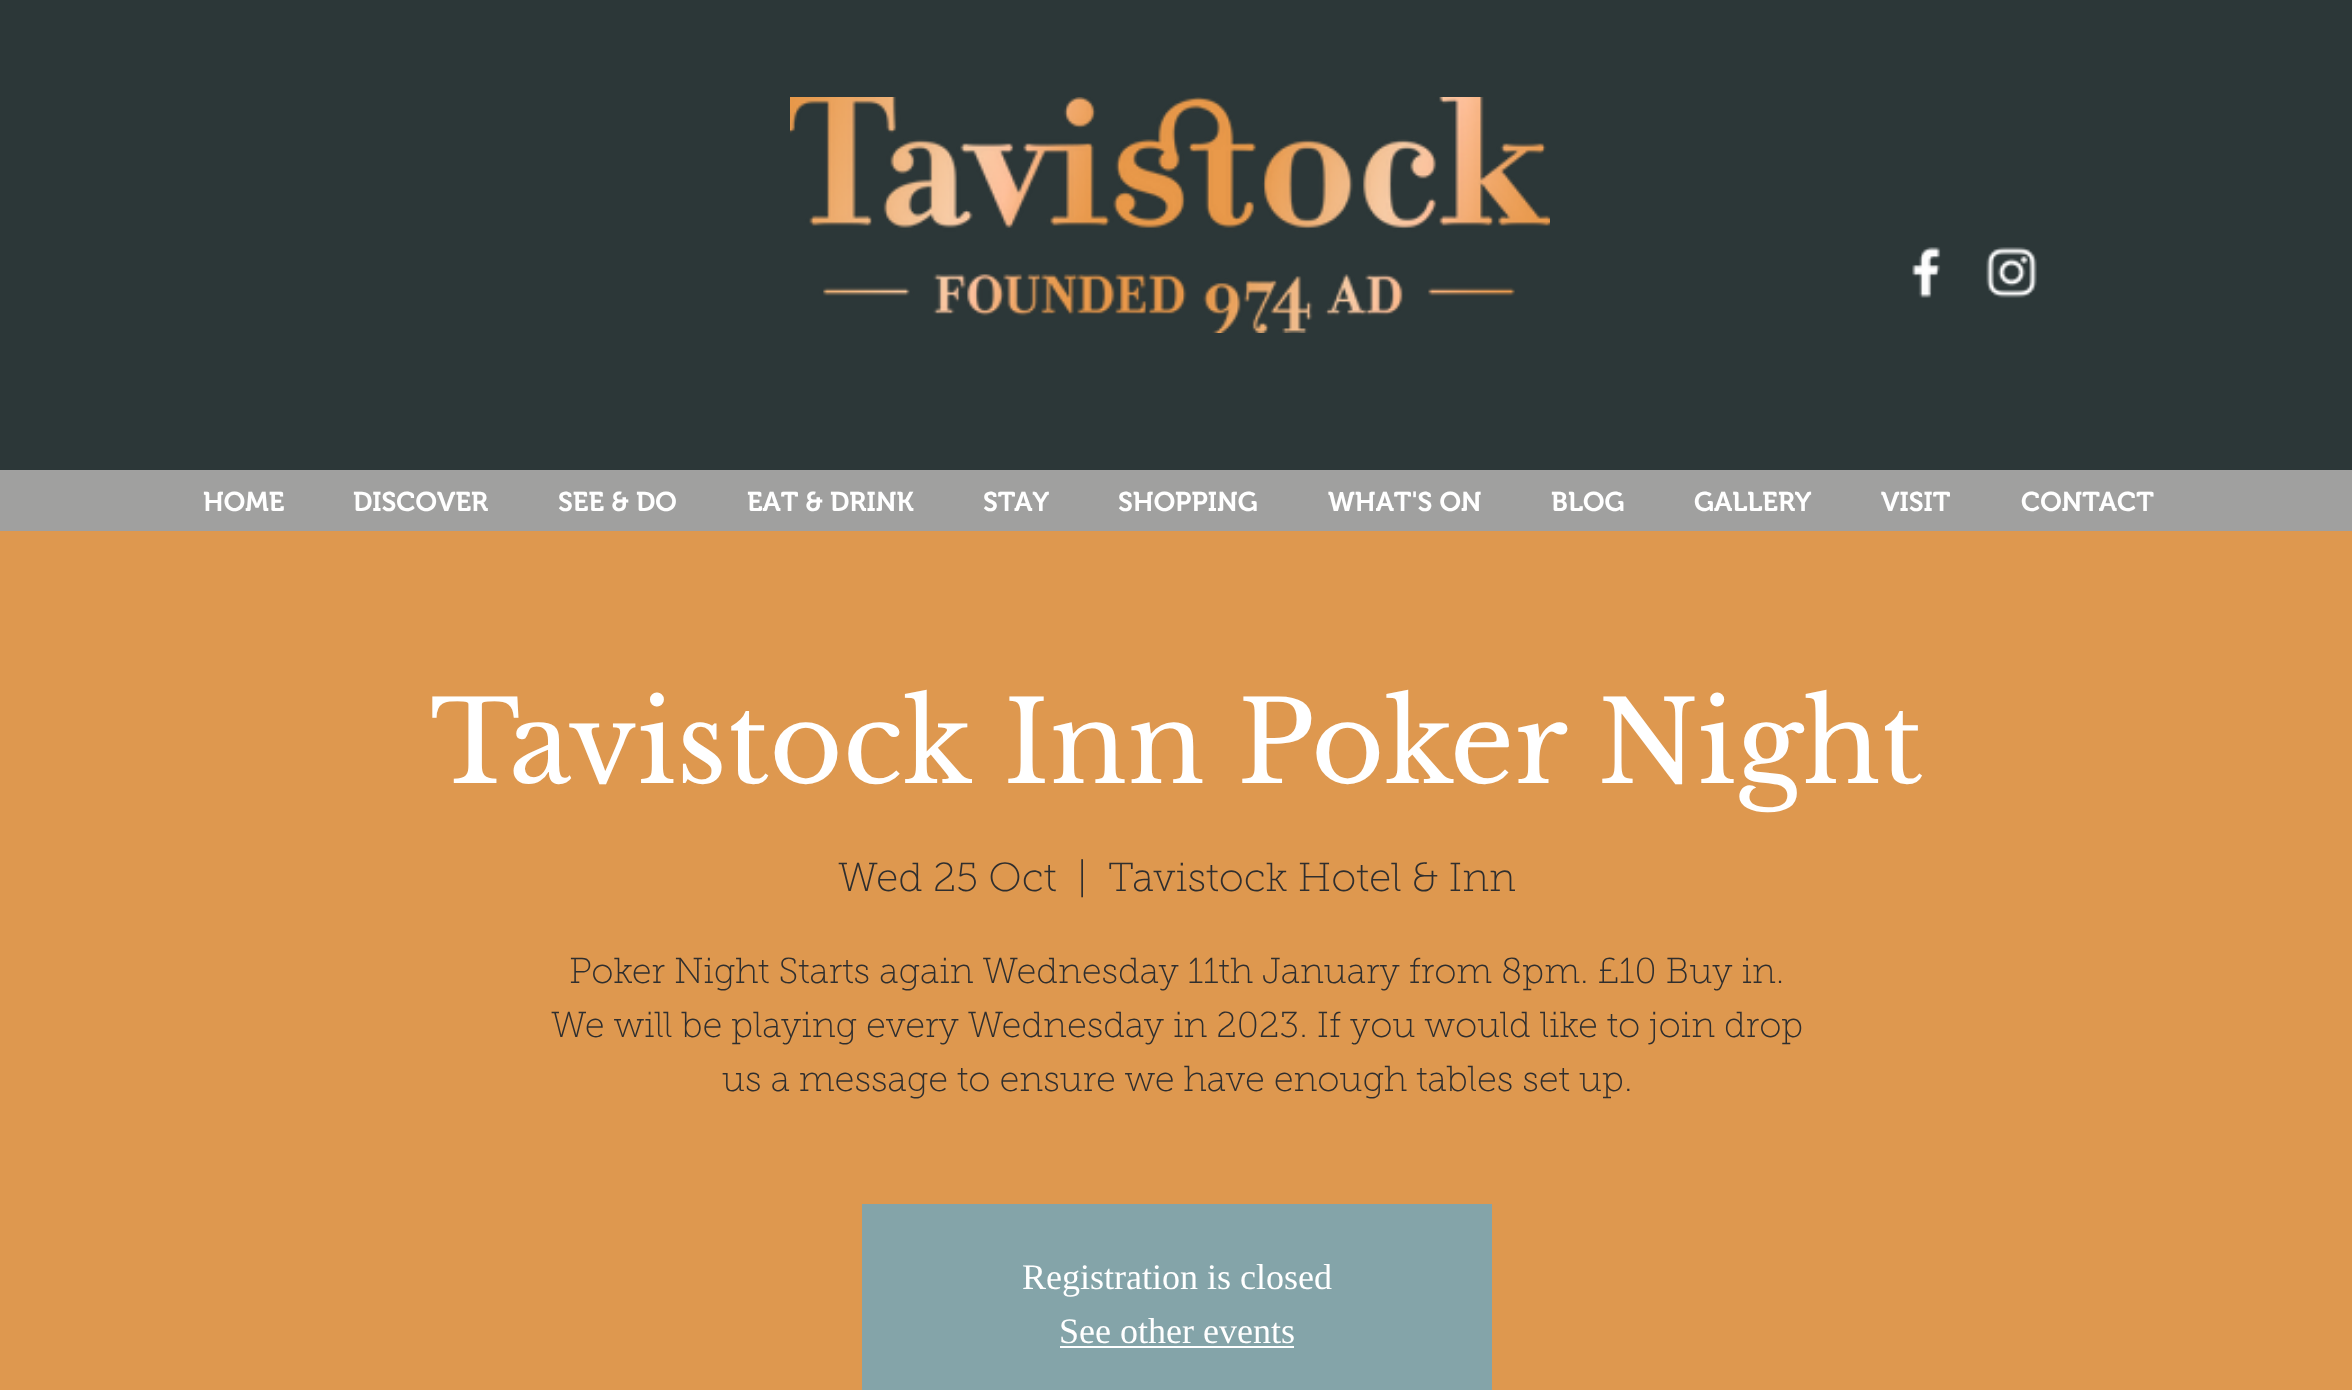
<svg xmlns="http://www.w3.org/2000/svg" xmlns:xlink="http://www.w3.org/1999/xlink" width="2352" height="1390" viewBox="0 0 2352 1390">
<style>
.cls-1{font:600 27px 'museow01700';fill:#ffffff}
.cls-2{font:112.5px Libre Baskerville;fill:#ffffff}
.cls-3{font:100 40.5px 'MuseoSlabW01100';fill:#2f2e2e}
.cls-4{font:100 36px 'MuseoSlabW01100';fill:#2f2e2e}
.cls-5{font:36px Liberation Serif;fill:#ffffff}
</style>
<rect width="100%" height="100%" fill="#2c3738"/>
<image xlink:href="image0.png" x="790" y="97" width="760" height="236"/>
<image xlink:href="image1.png" x="1912" y="247" width="29" height="51"/>
<image xlink:href="image2.png" x="1986" y="247" width="51" height="51"/>
<rect fill="#a0a09f" x="0" y="470" width="2352" height="61"/>
<rect fill="#de984f" x="0" y="531" width="2352" height="859"/>
<rect fill="#84a4a9" x="862" y="1204" width="630" height="186"/>
<rect fill="#ffffff" x="1060" y="1346" width="234" height="2"/>
<text class="cls-1" x="203" y="511">HOME</text>
<text class="cls-1" x="353" y="511">DISCOVER</text>
<text class="cls-1" x="558" y="511">SEE &amp; DO</text>
<text class="cls-1" x="747" y="511">EAT &amp; DRINK</text>
<text class="cls-1" x="983" y="511">STAY</text>
<text class="cls-1" x="1118" y="511">SHOPPING</text>
<text class="cls-1" x="1328" y="511">WHAT'S ON</text>
<text class="cls-1" x="1551" y="511">BLOG</text>
<text class="cls-1" x="1694" y="511">GALLERY</text>
<text class="cls-1" x="1881" y="511">VISIT</text>
<text class="cls-1" x="2021" y="511">CONTACT</text>
<text class="cls-2" x="430" y="783">Tavistock Inn Poker Night</text>
<text class="cls-3" x="838" y="891">Wed 25 Oct</text>
<text class="cls-3" x="1077" y="891">|</text>
<text class="cls-3" x="1108" y="891">Tavistock Hotel &amp; Inn</text>
<text class="cls-4" x="569" y="983">Poker Night Starts again Wednesday 11th January from 8pm. £10 Buy in.</text>
<text class="cls-4" x="551" y="1037">We will be playing every Wednesday in 2023. If you would like to join drop</text>
<text class="cls-4" x="722" y="1091">us a message to ensure we have enough tables set up.</text>
<text class="cls-5" x="1022" y="1289">Registration is closed</text>
<text class="cls-5" x="1059" y="1343">See other events</text>
</svg>
